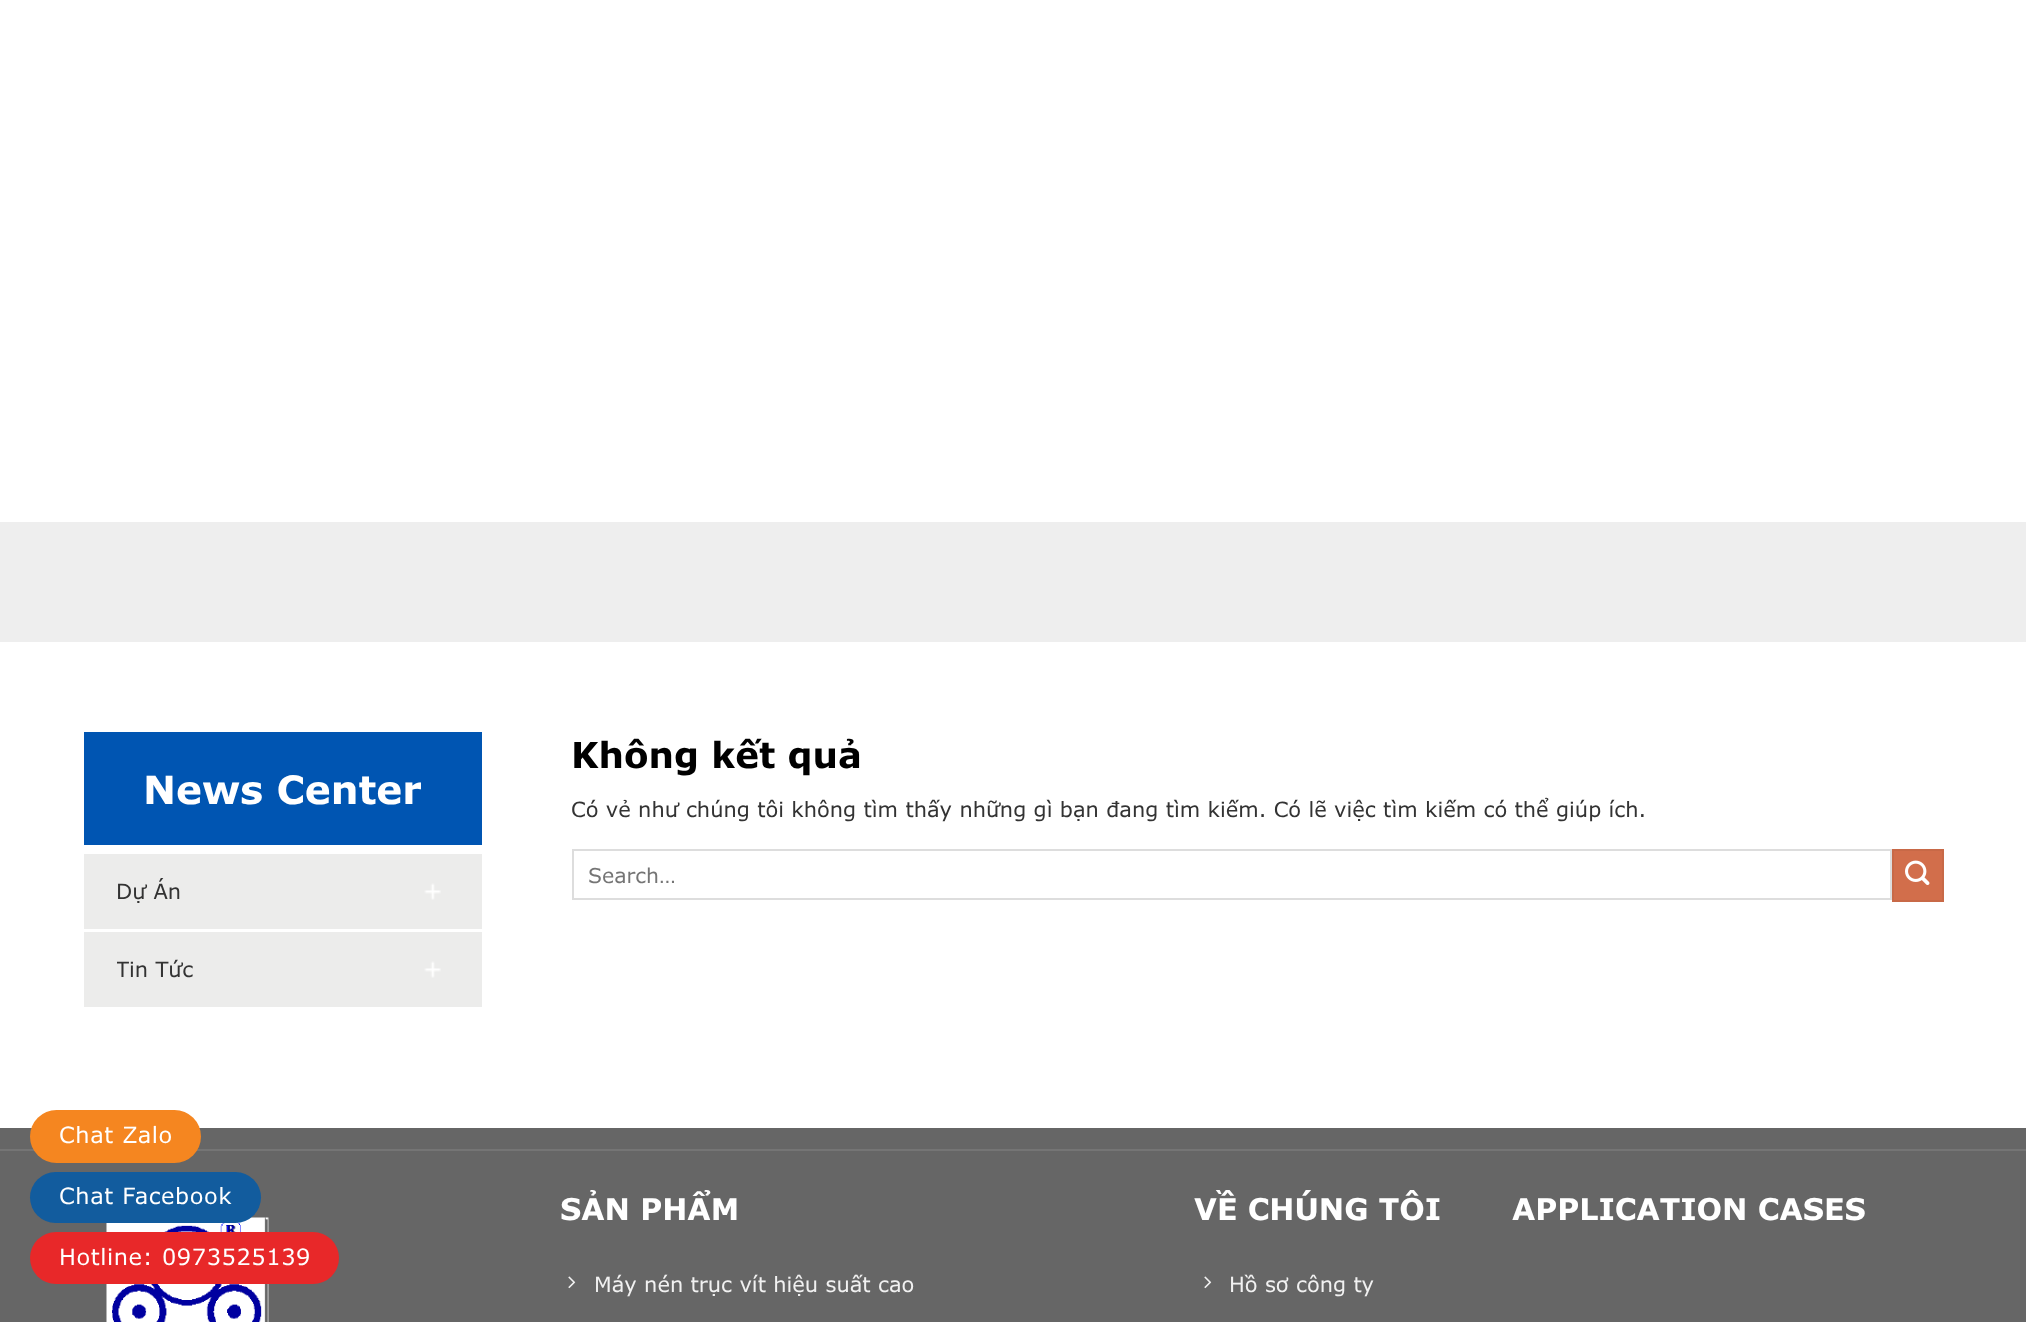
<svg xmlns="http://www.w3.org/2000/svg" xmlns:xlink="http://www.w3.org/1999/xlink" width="2026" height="1322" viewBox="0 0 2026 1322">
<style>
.cls-1{font:bold 39px Verdana;fill:#ffffff}
.cls-2{font:21px Verdana;fill:#333333}
.cls-3{font:bold 35.75px Verdana;fill:#000000}
.cls-4{font:20.5px Verdana;fill:#757575}
.cls-5{font:bold 30px Verdana;fill:#ffffff}
.cls-6{font:21px Verdana;fill:#f1f1f1}
.cls-7{font:22.5px Verdana;letter-spacing:0.6px;fill:#ffffff}
</style>
<defs>
<clipPath id="clip1"><rect x="117" y="932" width="305" height="75"/></clipPath>
</defs>
<rect width="100%" height="100%" fill="#ffffff"/>
<rect fill="#eeeeee" x="0" y="522" width="2026" height="120"/>
<rect fill="#0055b2" x="84" y="732" width="398" height="113"/>
<rect fill="#ececeb" x="84" y="854" width="398" height="75"/>
<image xlink:href="image0.png" x="424" y="883" width="17" height="17"/>
<rect fill="#ececeb" x="84" y="932" width="398" height="75"/>
<image xlink:href="image0.png" x="424" y="961" width="17" height="17"/>
<rect fill="none" stroke="#dddddd" stroke-width="2" x="573" y="850" width="1318" height="49"/>
<rect fill="#d26e4b" stroke="#c86947" stroke-width="2" x="1893" y="850" width="50" height="51"/>
<image xlink:href="image1.png" x="1905" y="860" width="25" height="25"/>
<rect fill="#666666" x="0" y="1128" width="2026" height="194"/>
<rect fill="#757575" x="0" y="1149" width="2026" height="2"/>
<image xlink:href="image2.png" x="568" y="1276" width="8" height="13"/>
<image xlink:href="image2.png" x="1204" y="1276" width="8" height="13"/>
<image xlink:href="image3.png" x="106" y="1217" width="163" height="105"/>
<rect fill="#f58620" x="30" y="1110" width="171" height="53" rx="26.5"/>
<rect fill="#125c9e" x="30" y="1172" width="231" height="51" rx="25.5"/>
<rect fill="#e82829" x="30" y="1232" width="309" height="52" rx="26"/>
<text class="cls-1" x="143" y="804">News Center</text>
<text class="cls-2" x="116" y="899">Dự Án</text>
<g clip-path="url(#clip1)">
<text class="cls-2" x="116" y="977">Tin Tức</text>
</g>
<text class="cls-3" x="571" y="768">Không kết quả</text>
<text class="cls-2" x="571" y="817">Có vẻ như chúng tôi không tìm thấy những gì bạn đang tìm kiếm. Có lẽ việc tìm kiếm có thể giúp ích.</text>
<text class="cls-4" x="588" y="883">Search…</text>
<text class="cls-5" x="560" y="1220">SẢN PHẨM</text>
<text class="cls-6" x="594" y="1292">Máy nén trục vít hiệu suất cao</text>
<text class="cls-5" x="1194" y="1220">VỀ CHÚNG TÔI</text>
<text class="cls-6" x="1229" y="1292">Hồ sơ công ty</text>
<text class="cls-5" x="1512" y="1220">APPLICATION CASES</text>
<text class="cls-7" x="59" y="1143">Chat Zalo</text>
<text class="cls-7" x="59" y="1204">Chat Facebook</text>
<text class="cls-7" x="59" y="1265">Hotline: 0973525139</text>
</svg>
